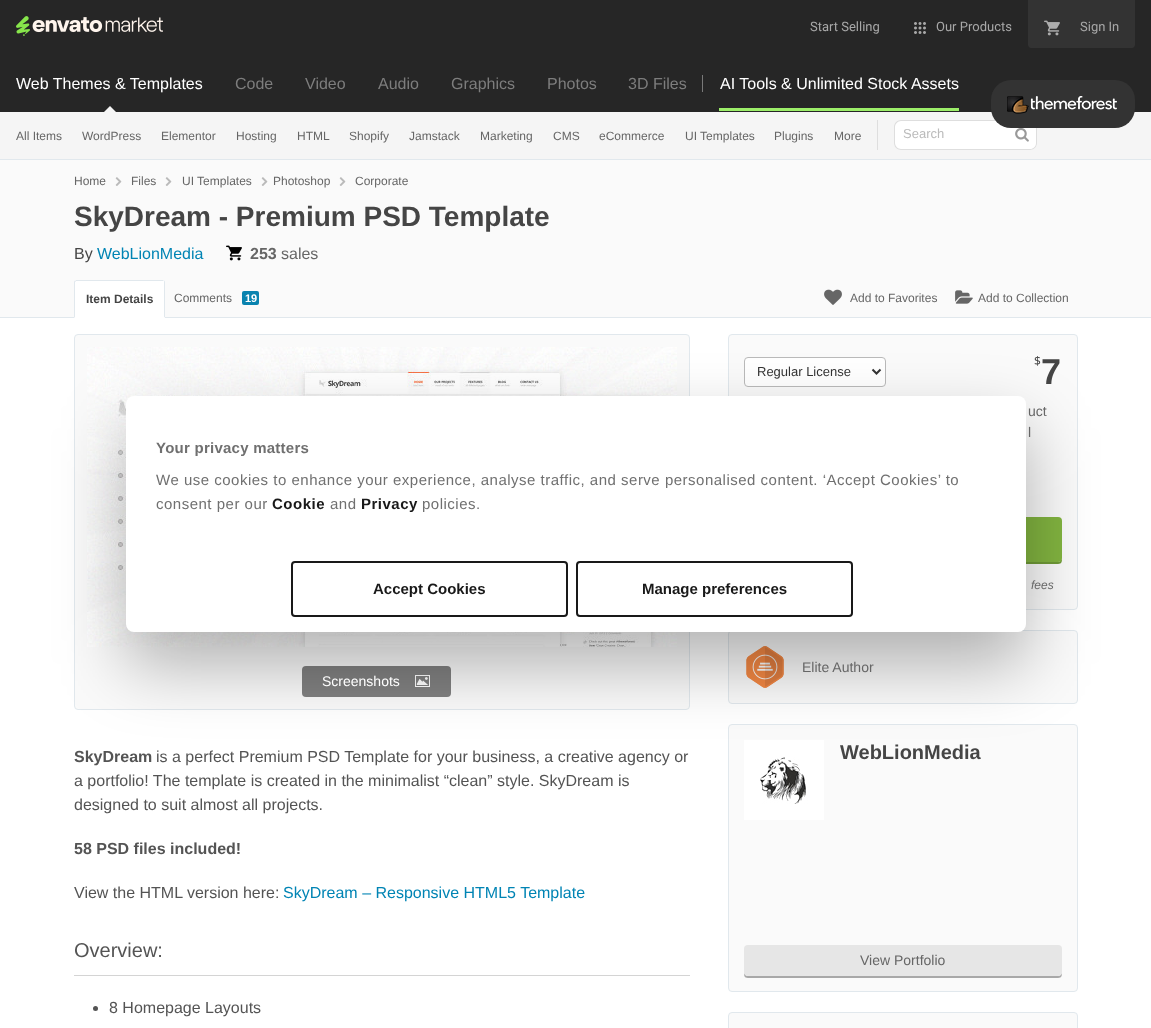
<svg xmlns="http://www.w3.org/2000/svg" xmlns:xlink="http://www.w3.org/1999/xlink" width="1151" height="1028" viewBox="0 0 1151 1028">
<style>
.cls-1{font:13px Roboto;fill:#a8a8a8}
.cls-2{font:16px Liberation Sans;fill:#ffffff}
.cls-3{font:16px Liberation Sans;fill:#7d7d7d}
.cls-4{font:12px Liberation Sans;fill:#666666}
.cls-5{font:13px Liberation Sans;fill:#bbbbbb}
.cls-6{font:bold 28px Liberation Sans;fill:#454545}
.cls-7{font:16px Liberation Sans;fill:#454545}
.cls-8{font:16px Liberation Sans;fill:#0084b4}
.cls-9{font:bold 16px Liberation Sans;fill:#666666}
.cls-10{font:16px Liberation Sans;fill:#666666}
.cls-11{font:bold 12px Liberation Sans;fill:#454545}
.cls-12{font:bold 11px Liberation Sans;fill:#ffffff}
.cls-13{font:14px Liberation Sans;fill:#ffffff}
.cls-14{font:bold 16px Liberation Sans;fill:#545454}
.cls-15{font:16px Liberation Sans;fill:#545454}
.cls-16{font:20px Liberation Sans;fill:#545454}
.cls-17{font:13px Liberation Sans;fill:#333333}
.cls-18{font:12px Noto Sans;fill:#454545}
.cls-19{font:bold 36px Liberation Sans;fill:#454545}
.cls-20{font:14px Liberation Sans;fill:#666666}
.cls-21{font:italic 12px Liberation Sans;fill:#666666}
.cls-22{font:bold 20px Liberation Sans;fill:#454545}
.cls-23{font:bold 15px Liberation Sans;letter-spacing:0.25px;fill:#707070}
.cls-24{font:15px Liberation Sans;letter-spacing:0.5px;fill:#707070}
.cls-25{font:bold 15px Liberation Sans;letter-spacing:0.5px;fill:#191919}
.cls-26{font:bold 15px Liberation Sans;fill:#191919}
</style>
<rect width="100%" height="100%" fill="#ffffff"/>
<rect fill="#262626" x="0" y="0" width="1151" height="112"/>
<image xlink:href="image0.png" x="16" y="16" width="147" height="20"/>
<image xlink:href="image1.png" x="914" y="22" width="12" height="12"/>
<path fill="#333333" d="M1028 0H1068V48H1031C1029.5 48 1028 46.5 1028 45Z"/>
<image xlink:href="image2.png" x="1044" y="20" width="16" height="16"/>
<path fill="#333333" d="M1068 0H1135V45C1135 46.5 1133.5 48 1132 48H1068Z"/>
<path fill="#f5f5f5" d="M116 112H104L110 106Z"/>
<rect fill="#797979" x="702" y="75" width="1" height="17"/>
<rect fill="#9cee69" x="719" y="108" width="240" height="3"/>
<rect fill="#f5f5f5" x="0" y="112" width="1151" height="47"/>
<path fill="#ffffff" d="M901 120H1007V150H901C897 150 894 147 894 143V127C894 123 897 120 901 120Z"/>
<path fill="#dedede" fill-rule="evenodd" d="M901 120H1007V150H901C897 150 894 147 894 143V127C894 123 897 120 901 120ZM901 121H1007V149H901C898 149 895 146 895 143V127C895 124 898 121 901 121Z"/>
<path fill="#ffffff" d="M1007 120H1030C1034 120 1037 123 1037 127V143C1037 147 1034 150 1030 150H1007Z"/>
<path fill="#dedede" fill-rule="evenodd" d="M1007 120H1030C1034 120 1037 123 1037 127V143C1037 147 1034 150 1030 150H1007ZM1007 121H1030C1033.5 121 1036 123.5 1036 127V143C1036 146.5 1033.5 149 1030 149H1007Z"/>
<rect fill="#333333" x="991" y="80" width="144" height="48" rx="20"/>
<image xlink:href="image3.png" x="1007" y="96" width="110" height="18"/>
<rect fill="#e1e8ed" x="0" y="159" width="1151" height="1"/>
<rect fill="#dedede" x="877" y="120" width="1" height="30"/>
<image xlink:href="image4.png" x="1015" y="128" width="14" height="14"/>
<rect fill="#fafafa" x="0" y="160" width="1151" height="157"/>
<rect fill="#e1e8ed" x="0" y="317" width="1151" height="1"/>
<image xlink:href="image5.png" x="115" y="177" width="7" height="9"/>
<image xlink:href="image5.png" x="165" y="177" width="7" height="9"/>
<image xlink:href="image5.png" x="261" y="177" width="7" height="9"/>
<image xlink:href="image5.png" x="339" y="177" width="7" height="9"/>
<image xlink:href="image6.png" x="226" y="245" width="16" height="16"/>
<path fill="#ffffff" d="M76 280H163C164 280 165 281 165 282V318H74V282C74 281 75 280 76 280Z"/>
<path fill="#e1e8ed" d="M76 280L75 281L76 282V281H164L163 280Z"/>
<path fill="#e1e8ed" d="M165 318V282L164.5 280.5L164 281V317Z"/>
<path fill="#ffffff" d="M165 318L164 317H75L74 318Z"/>
<path fill="#e1e8ed" d="M74 318L75 317V282L75.5 281.5L74.5 280.5L74 282Z"/>
<rect fill="#0983af" x="242" y="291" width="17" height="14" rx="2"/>
<image xlink:href="image7.png" x="824" y="289" width="18" height="16"/>
<image xlink:href="image8.png" x="955" y="290" width="18" height="14"/>
<rect fill="#fafafa" stroke="#e1e8ed" x="74.5" y="334.5" width="615" height="375" rx="3.5"/>
<image xlink:href="image9.png" x="87" y="347" width="590" height="300"/>
<rect fill="#808080" x="302" y="666" width="149" height="31" rx="4"/>
<image xlink:href="image10.png" x="415" y="675" width="15" height="12"/>
<rect fill="#d4d4d4" x="74" y="975" width="616" height="1"/>
<circle fill="#545454" cx="95.5" cy="1008.5" r="2.5"/>
<rect fill="#fafafa" stroke="#e1e8ed" x="728.5" y="334.5" width="349" height="275" rx="3.5"/>
<rect fill="#ffffff" stroke="#bababa" x="744.5" y="357.5" width="141" height="29" rx="3.5"/>
<path fill="none" stroke="#333333" stroke-width="2" d="M872.5 369.5L876.5 373.5L880.5 369.5"/>
<path fill="#6f9a37" d="M744 558C744 561 744 564 748 564H1058C1062 564 1062 561 1062 558C1062 560 1060 562 1058 562H748C746 562 744 560 744 558Z"/>
<rect fill="#82b440" x="744" y="517" width="318" height="45" rx="4"/>
<rect fill="#fafafa" stroke="#e1e8ed" x="728.5" y="630.5" width="349" height="73" rx="3.5"/>
<image xlink:href="image11.png" x="746" y="646" width="38" height="42"/>
<rect fill="#fafafa" stroke="#e1e8ed" x="728.5" y="724.5" width="349" height="267" rx="3.5"/>
<image xlink:href="image12.png" x="744" y="740" width="80" height="80"/>
<path fill="#a8a8a8" d="M744 972C744 975 744 978 748 978H1058C1062 978 1062 975 1062 972C1062 974 1060 976 1058 976H748C746 976 744 974 744 972Z"/>
<rect fill="#e6e6e6" x="744" y="945" width="318" height="31" rx="4"/>
<rect fill="#fafafa" stroke="#e1e8ed" x="728.5" y="1012.5" width="349" height="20" rx="3.5"/>
<rect fill="#000000" fill-opacity="0.3" filter="blur(34px)" x="126" y="428" width="900" height="236" rx="8"/>
<rect fill="#ffffff" x="126" y="396" width="900" height="236" rx="8"/>
<rect fill="none" stroke="#191919" stroke-width="2" x="292" y="562" width="275" height="54" rx="3"/>
<rect fill="none" stroke="#191919" stroke-width="2" x="577" y="562" width="275" height="54" rx="3"/>
<text class="cls-1" x="810" y="31">Start Selling</text>
<text class="cls-1" x="936" y="31">Our Products</text>
<text class="cls-1" x="1080" y="31">Sign In</text>
<text class="cls-2" x="16" y="89">Web Themes &amp; Templates</text>
<text class="cls-3" x="235" y="89">Code</text>
<text class="cls-3" x="305" y="89">Video</text>
<text class="cls-3" x="378" y="89">Audio</text>
<text class="cls-3" x="451" y="89">Graphics</text>
<text class="cls-3" x="547" y="89">Photos</text>
<text class="cls-3" x="628" y="89">3D Files</text>
<text class="cls-2" x="720" y="89">AI Tools &amp; Unlimited Stock Assets</text>
<text class="cls-4" x="16" y="140">All Items</text>
<text class="cls-4" x="82" y="140">WordPress</text>
<text class="cls-4" x="161" y="140">Elementor</text>
<text class="cls-4" x="236" y="140">Hosting</text>
<text class="cls-4" x="297" y="140">HTML</text>
<text class="cls-4" x="349" y="140">Shopify</text>
<text class="cls-4" x="409" y="140">Jamstack</text>
<text class="cls-4" x="480" y="140">Marketing</text>
<text class="cls-4" x="553" y="140">CMS</text>
<text class="cls-4" x="599" y="140">eCommerce</text>
<text class="cls-4" x="685" y="140">UI Templates</text>
<text class="cls-4" x="774" y="140">Plugins</text>
<text class="cls-4" x="834" y="140">More</text>
<text class="cls-5" x="903" y="138">Search</text>
<text class="cls-4" x="74" y="185">Home</text>
<text class="cls-4" x="131" y="185">Files</text>
<text class="cls-4" x="182" y="185">UI Templates</text>
<text class="cls-4" x="273" y="185">Photoshop</text>
<text class="cls-4" x="355" y="185">Corporate</text>
<text class="cls-6" x="74" y="226">SkyDream - Premium PSD Template</text>
<text class="cls-7" x="74" y="259">By</text>
<text class="cls-8" x="97" y="259">WebLionMedia</text>
<text class="cls-9" x="250" y="259">253</text>
<text class="cls-10" x="281" y="259">sales</text>
<text class="cls-11" x="86" y="303">Item Details</text>
<text class="cls-4" x="174" y="302">Comments</text>
<text class="cls-12" x="245" y="302">19</text>
<text class="cls-4" x="850" y="302">Add to Favorites</text>
<text class="cls-4" x="978" y="302">Add to Collection</text>
<text class="cls-13" x="322" y="686">Screenshots</text>
<text class="cls-14" x="74" y="762">SkyDream</text>
<text class="cls-15" x="156" y="762">is a perfect Premium PSD Template for your business, a creative agency or</text>
<text class="cls-15"><tspan x="74" y="786">a portfolio! The template is created in the minimalist “clean” style. SkyDream is</tspan><tspan x="74" y="810">designed to suit almost all projects.</tspan></text>
<text class="cls-14" x="74" y="854">58 PSD files included!</text>
<text class="cls-15" x="74" y="898">View the HTML version here:</text>
<text class="cls-8" x="283" y="898">SkyDream – Responsive HTML5 Template</text>
<text class="cls-16" x="74" y="957">Overview:</text>
<text class="cls-15" x="109" y="1013">8 Homepage Layouts</text>
<text class="cls-17" x="757" y="376">Regular License</text>
<text class="cls-18" x="1034" y="365">$</text>
<text class="cls-19" x="1041" y="384">7</text>
<text class="cls-20"><tspan x="1028" y="416">uct</tspan><tspan x="1028" y="437">l</tspan></text>
<text class="cls-21" x="1031" y="589">fees</text>
<text class="cls-20" x="802" y="672">Elite Author</text>
<text class="cls-22" x="840" y="759">WebLionMedia</text>
<text class="cls-20" x="860" y="965">View Portfolio</text>
<text class="cls-23" x="156" y="453">Your privacy matters</text>
<text class="cls-24"><tspan x="156" y="485">We use cookies to enhance your experience, analyse traffic, and serve personalised content. ‘Accept Cookies’ to</tspan><tspan x="156" y="509">consent per our</tspan></text>
<text class="cls-25" x="272" y="509">Cookie</text>
<text class="cls-24" x="330" y="509">and</text>
<text class="cls-25" x="361" y="509">Privacy</text>
<text class="cls-24" x="422" y="509">policies.</text>
<text class="cls-26" x="373" y="594">Accept Cookies</text>
<text class="cls-26" x="642" y="594">Manage preferences</text>
</svg>
